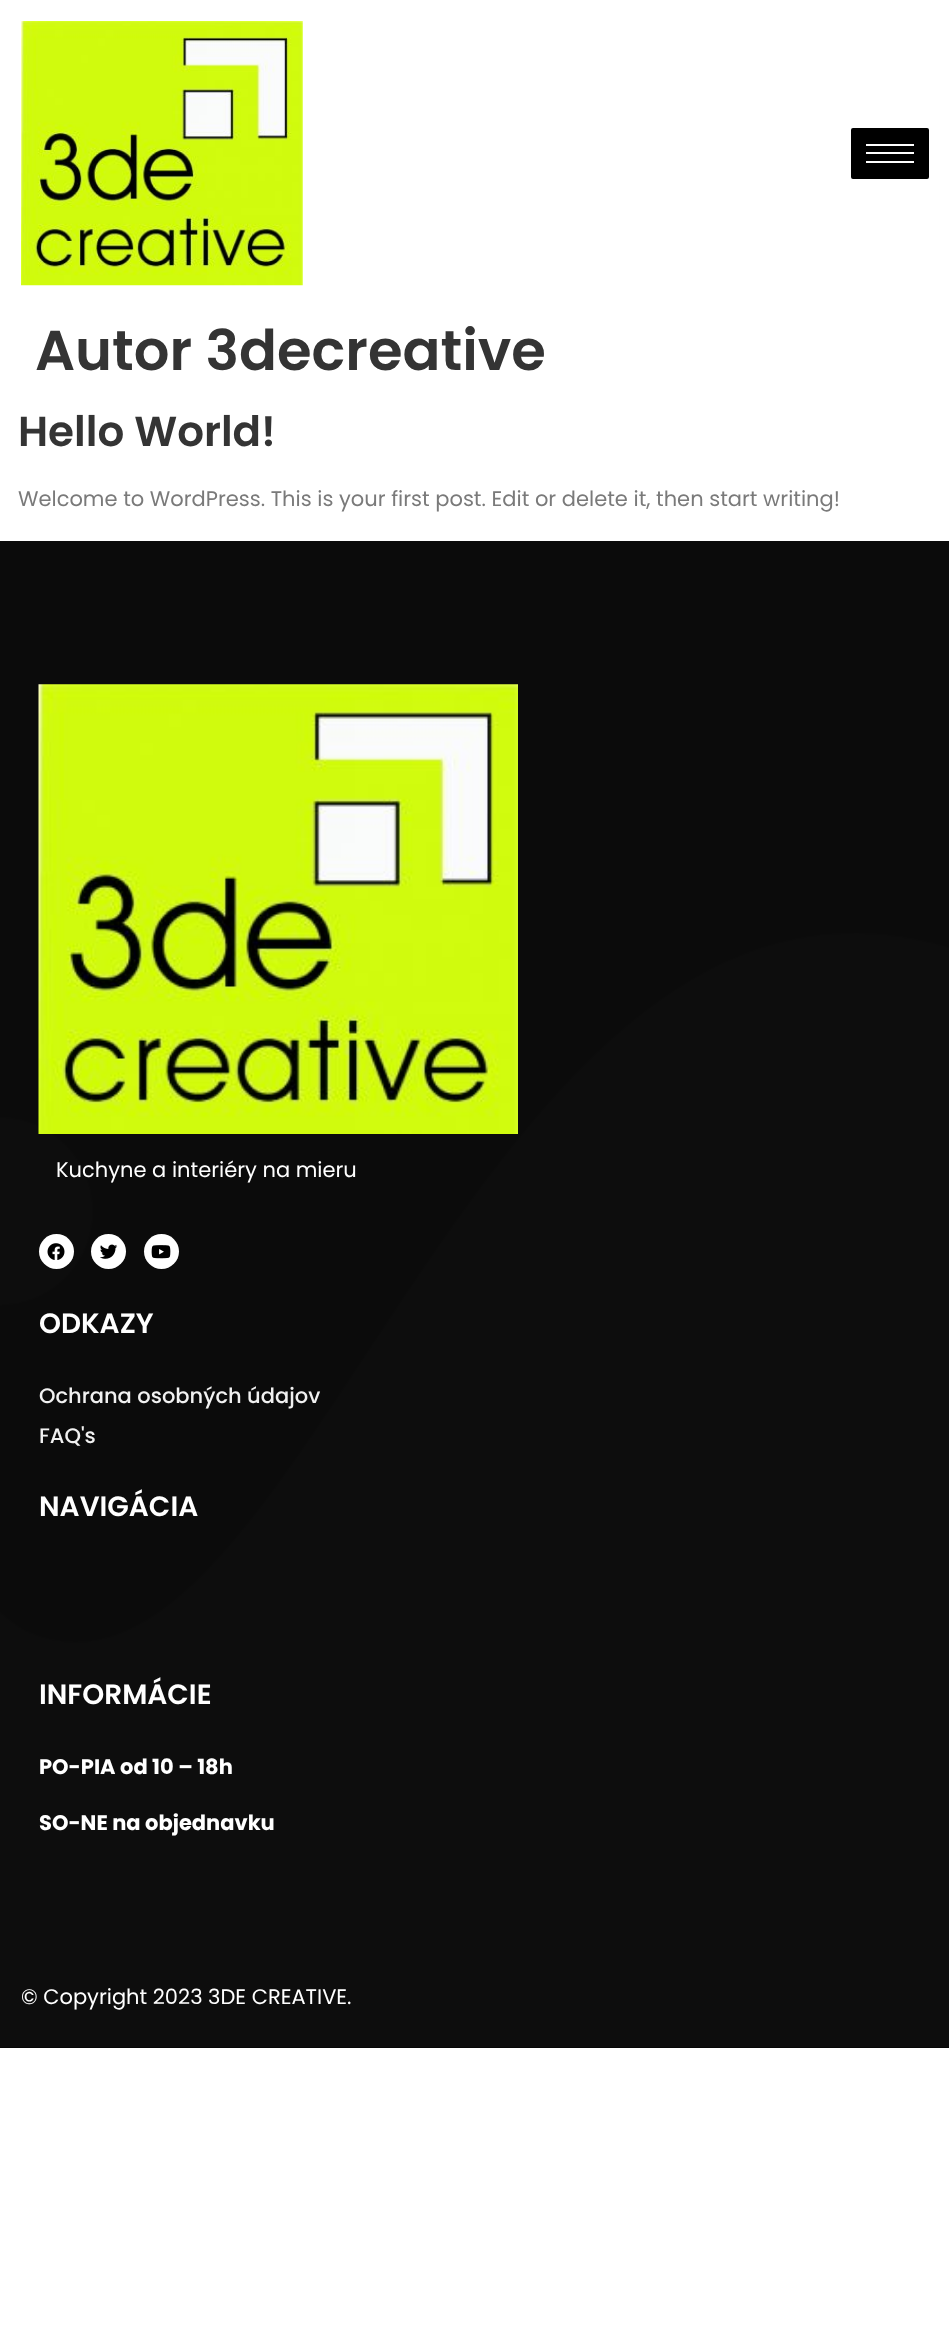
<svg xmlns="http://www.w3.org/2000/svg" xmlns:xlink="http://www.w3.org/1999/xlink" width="949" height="2339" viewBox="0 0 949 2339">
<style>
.cls-1{font:600 56px Poppins;fill:#343434}
.cls-2{font:600 42px Poppins;fill:#343434}
.cls-3{font:21px Poppins;fill:#7a7a7a}
.cls-4{font:21px Poppins;fill:#ffffff}
.cls-5{font:600 28px Poppins;fill:#ffffff}
.cls-6{font:500 21px Poppins;fill:#f1f1f1}
.cls-7{font:bold 21px Poppins;fill:#ffffff}
</style>
<rect width="100%" height="100%" fill="#ffffff"/>
<image xlink:href="image0.png" x="21" y="21" width="282" height="265"/>
<rect fill="#000000" stroke="#000000" stroke-width="2" x="852" y="129" width="76" height="49" rx="1"/>
<rect fill="#ffffff" x="866" y="144" width="48" height="2"/>
<rect fill="#ffffff" x="866" y="152" width="48" height="2"/>
<rect fill="#ffffff" x="866" y="161" width="48" height="2"/>
<rect fill="#000000" x="0" y="541" width="949" height="1507"/>
<image xlink:href="image1.png" x="0" y="541" width="949" height="1507"/>
<image xlink:href="image2.png" x="38" y="684" width="480" height="450"/>
<circle fill="#ffffff" cx="56.5" cy="1251.5" r="17.5"/>
<image xlink:href="image3.png" x="47" y="1243" width="18" height="17"/>
<circle fill="#ffffff" cx="108.5" cy="1251.5" r="17.5"/>
<image xlink:href="image4.png" x="100" y="1244" width="18" height="15"/>
<circle fill="#ffffff" cx="161.5" cy="1251.5" r="17.5"/>
<image xlink:href="image5.png" x="151" y="1245" width="20" height="14"/>
<text class="cls-1" x="35" y="370">Autor 3decreative</text>
<text class="cls-2" x="18" y="446">Hello World!</text>
<text class="cls-3" x="18" y="506">Welcome to WordPress. This is your first post. Edit or delete it, then start writing!</text>
<text class="cls-4" x="56" y="1177">Kuchyne a interiéry na mieru</text>
<text class="cls-5" x="39" y="1333">ODKAZY</text>
<text class="cls-6"><tspan x="39" y="1403">Ochrana osobných údajov</tspan><tspan x="39" y="1443">FAQ's</tspan></text>
<text class="cls-5" x="39" y="1516">NAVIGÁCIA</text>
<text class="cls-5" x="39" y="1704">INFORMÁCIE</text>
<text class="cls-7" x="39" y="1774">PO-PIA od 10 – 18h</text>
<text class="cls-7" x="39" y="1830">SO-NE na objednavku</text>
<text class="cls-4" x="21" y="2004">© Copyright 2023 3DE CREATIVE.</text>
</svg>
